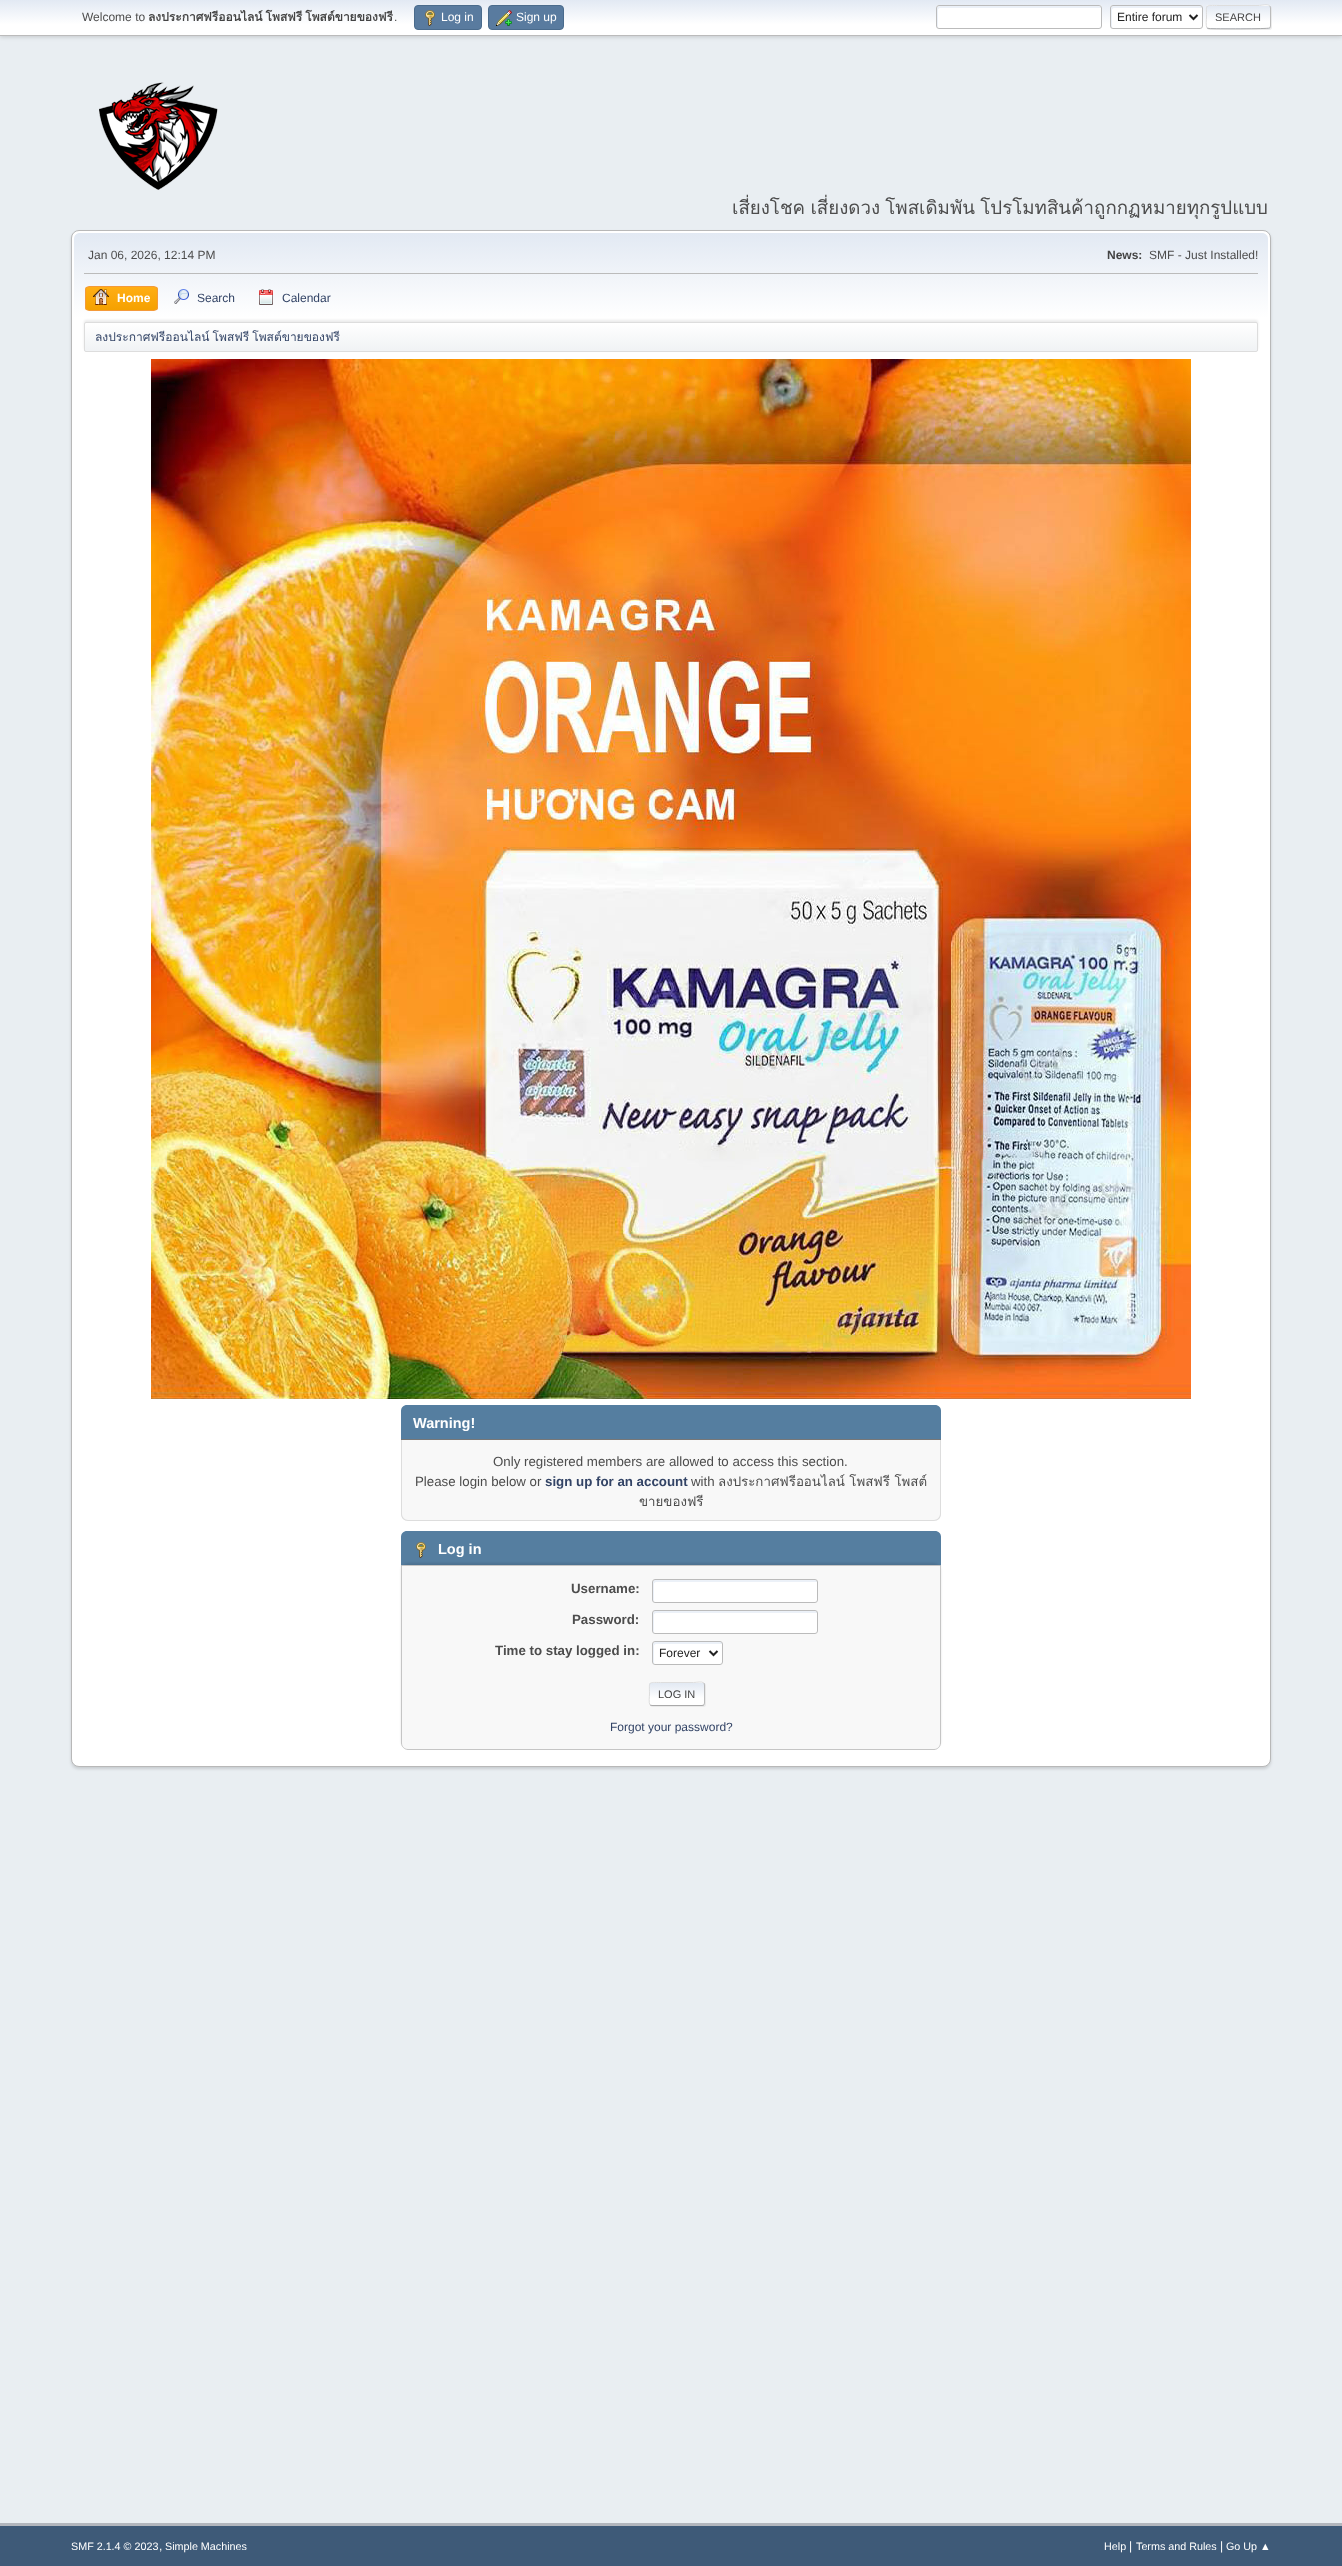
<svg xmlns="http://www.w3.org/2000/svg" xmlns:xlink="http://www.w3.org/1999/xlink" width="1342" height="2566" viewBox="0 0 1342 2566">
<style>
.cls-1{font:12px Liberation Sans;fill:#4d4d4d}
.cls-2{font:bold 12px Loma;fill:#444444}
.cls-3{font:12px Liberation Sans;fill:#ffffff}
.cls-4{font:12px Liberation Sans;fill:#222222}
.cls-5{font:11px Liberation Sans;fill:#444444}
.cls-6{font:18.7px Loma;fill:#4d4d4d}
.cls-7{font:bold 12px Liberation Sans;fill:#444444}
.cls-8{font:bold 12px Liberation Sans;fill:#ffffff}
.cls-9{font:12px Liberation Sans;fill:#334466}
.cls-10{font:12px Loma;fill:#334466}
.cls-11{font:bold 14.5px Liberation Sans;fill:#ffffff}
.cls-12{font:13.3px Liberation Sans;fill:#4d4d4d}
.cls-13{font:bold 13.3px Liberation Sans;fill:#334466}
.cls-14{font:13.3px Loma;fill:#4d4d4d}
.cls-15{font:bold 13.3px Liberation Sans;fill:#4d4d4d}
.cls-16{font:10.75px Liberation Sans;fill:#ffffff}
</style>
<defs>
<linearGradient id="g1" gradientUnits="userSpaceOnUse" x1="671" y1="0" x2="671" y2="35"><stop offset="0" stop-color="#e2e9f3"/><stop offset="0.7" stop-color="#ffffff"/></linearGradient>
<clipPath id="clip1"><rect x="1206" y="5" width="65" height="24" rx="3"/></clipPath>
<linearGradient id="g2" gradientUnits="userSpaceOnUse" x1="1239" y1="-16" x2="1239" y2="6"><stop offset="0" stop-color="#e2e9f3"/><stop offset="0.7" stop-color="#ffffff"/></linearGradient>
<linearGradient id="g3" gradientUnits="userSpaceOnUse" x1="1239" y1="6" x2="1239" y2="28"><stop offset="0" stop-color="#e2e9f3"/><stop offset="0.7" stop-color="#ffffff"/></linearGradient>
<linearGradient id="g4" gradientUnits="userSpaceOnUse" x1="1239" y1="28" x2="1239" y2="50"><stop offset="0" stop-color="#e2e9f3"/><stop offset="0.7" stop-color="#ffffff"/></linearGradient>
<linearGradient id="g5" gradientUnits="userSpaceOnUse" x1="671" y1="233" x2="671" y2="354"><stop offset="0" stop-color="#e2e9f3"/><stop offset="0.7" stop-color="#ffffff"/></linearGradient>
<clipPath id="clip2"><rect x="85" y="286" width="73" height="25" rx="4"/></clipPath>
<linearGradient id="g6" gradientUnits="userSpaceOnUse" x1="122" y1="287" x2="122" y2="310"><stop offset="0" stop-color="#ffae14"/><stop offset="1" stop-color="#f5a100"/></linearGradient>
<clipPath id="clip3"><rect x="84" y="322" width="1174" height="30" rx="2"/></clipPath>
<linearGradient id="g7" gradientUnits="userSpaceOnUse" x1="671" y1="323" x2="671" y2="351"><stop offset="0" stop-color="#ffffff"/><stop offset="0.95" stop-color="#f1f3f5"/></linearGradient>
<clipPath id="clip4"><rect x="649" y="1682" width="56" height="24" rx="3"/></clipPath>
<linearGradient id="g8" gradientUnits="userSpaceOnUse" x1="677" y1="1661" x2="677" y2="1683"><stop offset="0" stop-color="#e2e9f3"/><stop offset="0.7" stop-color="#ffffff"/></linearGradient>
<linearGradient id="g9" gradientUnits="userSpaceOnUse" x1="677" y1="1683" x2="677" y2="1705"><stop offset="0" stop-color="#e2e9f3"/><stop offset="0.7" stop-color="#ffffff"/></linearGradient>
</defs>
<rect width="100%" height="100%" fill="#e9eef2"/>
<rect fill="#000000" fill-opacity="0.16" filter="blur(2px)" x="0" y="1" width="1342" height="36"/>
<rect fill="url(#g1)" x="0" y="0" width="1342" height="35"/>
<rect fill="#bbbbbb" x="0" y="35" width="1342" height="1"/>
<rect fill="#597b9f" stroke="#4a6b8c" x="414.5" y="5.5" width="67" height="24" rx="3.5"/>
<image xlink:href="image0.png" x="425" y="10" width="10" height="16"/>
<rect fill="#597b9f" stroke="#4a6b8c" x="488.5" y="5.5" width="75" height="24" rx="3.5"/>
<image xlink:href="image1.png" x="496" y="10" width="16" height="16"/>
<rect fill="#ffffff" x="936" y="5" width="166" height="24" rx="3"/>
<path fill="#ecf1f8" d="M940 8H1101V7L1099 6H939C938 6 937 7 937 8C937 11 936 27 938 28V10C938 9 939 8 940 8Z"/>
<rect fill="none" stroke="#bbbbbb" x="936.5" y="5.5" width="165" height="23" rx="2.5"/>
<rect fill="#ffffff" x="1110" y="5" width="93" height="24" rx="3"/>
<path fill="#ecf1f8" d="M1114 8H1202C1202 3 1190 6 1186 6H1128C1109 6 1111 2 1111 17C1111 19 1110 27 1112 28V10C1112 9 1113 8 1114 8Z"/>
<rect fill="none" stroke="#bbbbbb" x="1110.5" y="5.5" width="92" height="23" rx="2.5"/>
<path fill="none" stroke="#222222" stroke-width="2" d="M1189.5 15L1193.5 19L1197.5 15"/>
<rect fill="#dddddd" fill-opacity="0.57" filter="blur(0.5px)" x="1207" y="6" width="65" height="24" rx="3"/>
<g clip-path="url(#clip1)">
<rect fill="url(#g2)" x="1206" y="5" width="65" height="1"/>
<rect fill="url(#g3)" x="1206" y="6" width="65" height="22"/>
<rect fill="url(#g4)" x="1206" y="28" width="65" height="1"/>
</g>
<path fill="none" stroke="#bbbbbb" d="M1270 6C1270 6.5 1270.5 7.5 1270.5 8V26C1270.5 26.5 1270 27.5 1270 28"/>
<path fill="none" stroke="#aaaaaa" d="M1270 28H1269.5C1268.5 29 1214 29 1209 28.5L1207 28"/>
<path fill="none" stroke="#dddddd" d="M1207 28C1205.5 26 1206.5 19 1206.5 17C1206.5 3.5 1204.5 5.5 1219 5.5H1258C1262 5.5 1267 3.5 1270 6"/>
<image xlink:href="image2.png" x="99" y="82" width="119" height="108"/>
<rect fill="#000000" fill-opacity="0.14" filter="blur(1.5px)" x="71" y="232" width="1200" height="1537" rx="8"/>
<rect fill="#ffffff" stroke="#b8b8b8" x="71.5" y="230.5" width="1199" height="1536" rx="7.5"/>
<path fill="url(#g5)" d="M80 233H1262C1265.5 233 1268 235.5 1268 239V354H74V239C74 235.5 76.5 233 80 233Z"/>
<rect fill="#bbbbbb" x="84" y="273" width="1174" height="1"/>
<g clip-path="url(#clip2)">
<rect fill="url(#g6)" x="85" y="287" width="73" height="23"/>
</g>
<rect fill="none" stroke="#f49a3a" x="85.5" y="286.5" width="72" height="24" rx="3.5"/>
<image xlink:href="image3.png" x="93" y="289" width="16" height="16"/>
<image xlink:href="image4.png" x="174" y="289" width="15" height="15"/>
<image xlink:href="image5.png" x="259" y="289" width="14" height="16"/>
<rect fill="#000000" fill-opacity="0.08" filter="blur(1px)" x="84" y="320" width="1174" height="30" rx="2"/>
<g clip-path="url(#clip3)">
<rect fill="url(#g7)" x="84" y="323" width="1174" height="28"/>
</g>
<rect fill="none" stroke="#dddddd" x="84.5" y="322.5" width="1173" height="29" rx="1.5"/>
<image xlink:href="image6.png" x="151" y="359" width="1040" height="1040"/>
<path fill="#557ea0" d="M407 1405H935C938.5 1405 941 1407.5 941 1411V1440H401V1411C401 1407.5 403.5 1405 407 1405Z"/>
<rect fill="#777777" x="401" y="1439" width="540" height="1"/>
<path fill="#f8f8f8" d="M401 1440H941V1514C941 1518 938 1521 934 1521H408C404 1521 401 1518 401 1514Z"/>
<path fill="#dddddd" fill-rule="evenodd" d="M401 1440H941V1514C941 1518 938 1521 934 1521H408C404 1521 401 1518 401 1514ZM402 1440H940V1514C940 1517 937 1520 934 1520H408C405 1520 402 1517 402 1514Z"/>
<path fill="#557ea0" d="M407 1531H935C938.5 1531 941 1533.5 941 1537V1566H401V1537C401 1533.5 403.5 1531 407 1531Z"/>
<image xlink:href="image7.png" x="416" y="1542" width="10" height="16"/>
<rect fill="#000000" fill-opacity="0.1" filter="blur(1px)" x="401" y="1563" width="540" height="185" rx="7"/>
<path fill="#f8f8f8" stroke="#c5c5c5" d="M401.5 1565.5H940.5V1743C940.5 1746.5 937.5 1749.5 934 1749.5H408C404.5 1749.5 401.5 1746.5 401.5 1743Z"/>
<rect fill="#ffffff" x="652" y="1579" width="166" height="24" rx="3"/>
<path fill="#ecf1f8" d="M656 1582H817V1581L815 1580H655C654 1580 653 1581 653 1582C653 1585 652 1601 654 1602V1584C654 1583 655 1582 656 1582Z"/>
<rect fill="none" stroke="#bbbbbb" x="652.5" y="1579.5" width="165" height="23" rx="2.5"/>
<rect fill="#ffffff" x="652" y="1610" width="166" height="24" rx="3"/>
<path fill="#ecf1f8" d="M656 1613H817V1612L815 1611H655C654 1611 653 1612 653 1613C653 1616 652 1632 654 1633V1615C654 1614 655 1613 656 1613Z"/>
<rect fill="none" stroke="#bbbbbb" x="652.5" y="1610.5" width="165" height="23" rx="2.5"/>
<rect fill="#ffffff" x="652" y="1641" width="71" height="24" rx="3"/>
<path fill="#ecf1f8" d="M656 1644H722V1643C720 1640 709 1642 709 1642H666C649 1642 653 1640 653 1656C653 1658 652 1662 654 1664V1646C654 1645 655 1644 656 1644Z"/>
<rect fill="none" stroke="#bbbbbb" x="652.5" y="1641.5" width="70" height="23" rx="2.5"/>
<path fill="none" stroke="#222222" stroke-width="2" d="M709.5 1651L713.5 1655L717.5 1651"/>
<rect fill="#dddddd" fill-opacity="0.57" filter="blur(0.5px)" x="650" y="1683" width="56" height="24" rx="3"/>
<g clip-path="url(#clip4)">
<rect fill="url(#g8)" x="649" y="1682" width="56" height="1"/>
<rect fill="url(#g9)" x="649" y="1683" width="56" height="22"/>
</g>
<path fill="none" stroke="#bbbbbb" d="M704 1683C704 1683.5 704.5 1684.5 704.5 1685V1703C704.5 1703.5 704 1704.5 704 1705"/>
<path fill="none" stroke="#aaaaaa" d="M704 1705L702 1705.5H652L650 1705"/>
<path fill="none" stroke="#dddddd" d="M650 1705C648.5 1703 649.5 1696 649.5 1694C649.5 1681 647.5 1682.5 660.5 1682.5H693.5C697 1682.5 701.5 1681 704 1683"/>
<rect fill="#3e5a78" x="0" y="2526" width="1342" height="40"/>
<rect fill="#b2b6bd" x="0" y="2523" width="1342" height="3"/>
<text class="cls-1" x="82" y="21">Welcome to</text>
<text class="cls-2" x="148" y="21" word-spacing="-1">ลงประกาศฟรีออนไลน์ โพสฟรี โพสต์ขายของฟรี</text>
<text class="cls-1" x="394" y="21">.</text>
<text class="cls-3" x="441" y="21">Log in</text>
<text class="cls-3" x="516" y="21">Sign up</text>
<text class="cls-4" x="1117" y="21">Entire forum</text>
<text class="cls-5" x="1215" y="21">SEARCH</text>
<text class="cls-6" x="732" y="214" word-spacing="-1">เสี่ยงโชค เสี่ยงดวง โพสเดิมพัน โปรโมทสินค้าถูกกฏหมายทุกรูปแบบ</text>
<text class="cls-1" x="88" y="259">Jan 06, 2026, 12:14 PM</text>
<text class="cls-7" x="1107" y="259">News:</text>
<text class="cls-1" x="1149" y="259">SMF - Just Installed!</text>
<text class="cls-8" x="117" y="302">Home</text>
<text class="cls-9" x="197" y="302">Search</text>
<text class="cls-9" x="282" y="302">Calendar</text>
<text class="cls-10" x="95" y="341" word-spacing="-1">ลงประกาศฟรีออนไลน์ โพสฟรี โพสต์ขายของฟรี</text>
<text class="cls-11" x="413" y="1428">Warning!</text>
<text class="cls-12" x="493" y="1466">Only registered members are allowed to access this section.</text>
<text class="cls-12" x="415" y="1486">Please login below or</text>
<text class="cls-13" x="545" y="1486">sign up for an account</text>
<text class="cls-12" x="691" y="1486">with</text>
<text class="cls-14" x="718" y="1486">ลงประกาศฟรีออนไลน์ โพสฟรี โพสต์</text>
<text class="cls-14" x="639" y="1506">ขายของฟรี</text>
<text class="cls-11" x="438" y="1554">Log in</text>
<text class="cls-15" x="571" y="1593">Username:</text>
<text class="cls-15" x="572" y="1624">Password:</text>
<text class="cls-15" x="495" y="1655">Time to stay logged in:</text>
<text class="cls-4" x="659" y="1657">Forever</text>
<text class="cls-5" x="658" y="1698">LOG IN</text>
<text class="cls-9" x="610" y="1731">Forgot your password?</text>
<text class="cls-16" x="71" y="2550">SMF 2.1.4 © 2023</text>
<text class="cls-3" x="159" y="2550">,</text>
<text class="cls-16" x="165" y="2550">Simple Machines</text>
<text class="cls-16" x="1104" y="2550">Help</text>
<text class="cls-3" x="1129" y="2550">|</text>
<text class="cls-16" x="1136" y="2550">Terms and Rules</text>
<text class="cls-3" x="1220" y="2550">|</text>
<text class="cls-16" x="1226" y="2550">Go Up ▲</text>
</svg>
